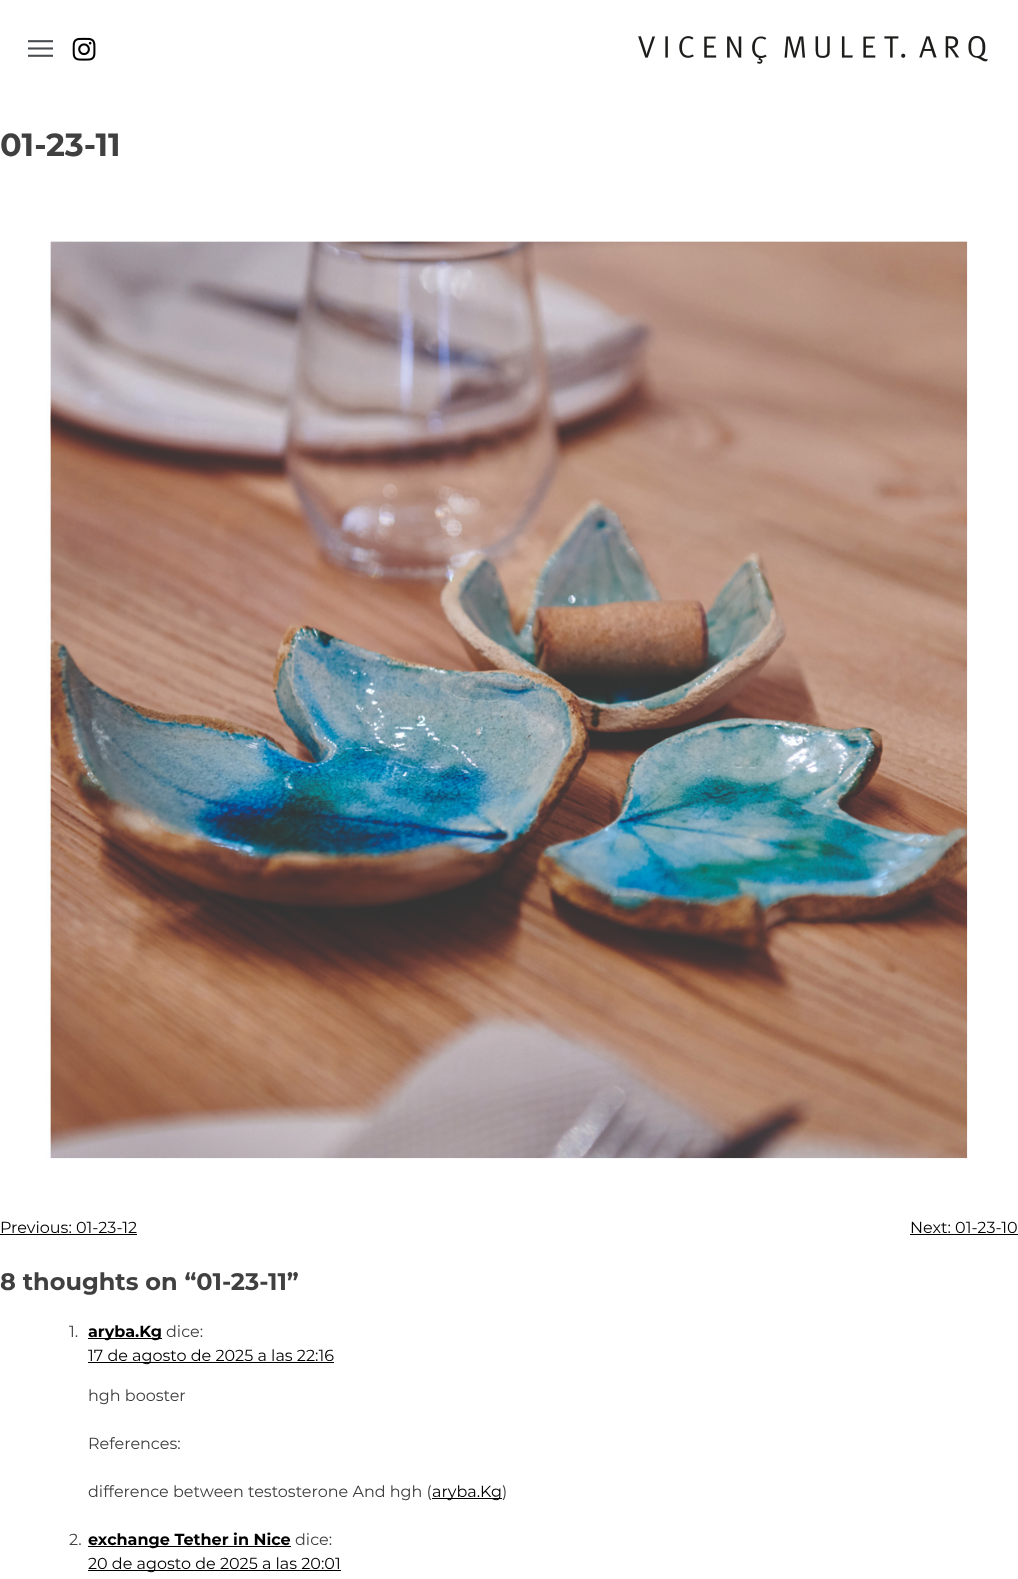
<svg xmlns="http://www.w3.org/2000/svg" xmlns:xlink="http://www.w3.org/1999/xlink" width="1018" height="1579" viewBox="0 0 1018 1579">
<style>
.cls-1{font:bold 32px Montserrat;fill:#404040}
.cls-2{font:16px Montserrat;fill:#000000}
.cls-3{font:bold 24px Montserrat;fill:#404040}
.cls-4{font:16px Montserrat;fill:#404040}
.cls-5{font:bold 16px Montserrat;fill:#000000}
</style>
<rect width="100%" height="100%" fill="#ffffff"/>
<image xlink:href="image0.png" x="28" y="40" width="25" height="17"/>
<image xlink:href="image1.png" x="72" y="37" width="24" height="24"/>
<image xlink:href="image2.png" x="638" y="36" width="350" height="28"/>
<image xlink:href="image3.png" x="47" y="241" width="921" height="918"/>
<rect fill="#000000" x="0" y="1234" width="137" height="1"/>
<rect fill="#000000" x="910" y="1234" width="108" height="1"/>
<rect fill="#000000" x="88" y="1338" width="74" height="1"/>
<rect fill="#000000" x="88" y="1362" width="246" height="1"/>
<rect fill="#000000" x="432" y="1498" width="70" height="1"/>
<rect fill="#000000" x="88" y="1546" width="203" height="1"/>
<rect fill="#000000" x="88" y="1570" width="253" height="1"/>
<text class="cls-1" x="0" y="156">01-23-11</text>
<text class="cls-2" x="0" y="1233">Previous: 01-23-12</text>
<text class="cls-2" x="910" y="1233">Next: 01-23-10</text>
<text class="cls-3" x="0" y="1290">8 thoughts on “01-23-11”</text>
<text class="cls-4" x="69" y="1337">1.</text>
<text class="cls-5" x="88" y="1337">aryba.Kg</text>
<text class="cls-4" x="166" y="1337">dice:</text>
<text class="cls-2" x="88" y="1361">17 de agosto de 2025 a las 22:16</text>
<text class="cls-4" x="88" y="1401">hgh booster</text>
<text class="cls-4" x="88" y="1449">References:</text>
<text class="cls-4" x="88" y="1497">difference between testosterone And hgh (</text>
<text class="cls-2" x="432" y="1497">aryba.Kg</text>
<text class="cls-4" x="502" y="1497">)</text>
<text class="cls-4" x="69" y="1545">2.</text>
<text class="cls-5" x="88" y="1545">exchange Tether in Nice</text>
<text class="cls-4" x="295" y="1545">dice:</text>
<text class="cls-2" x="88" y="1569">20 de agosto de 2025 a las 20:01</text>
</svg>
